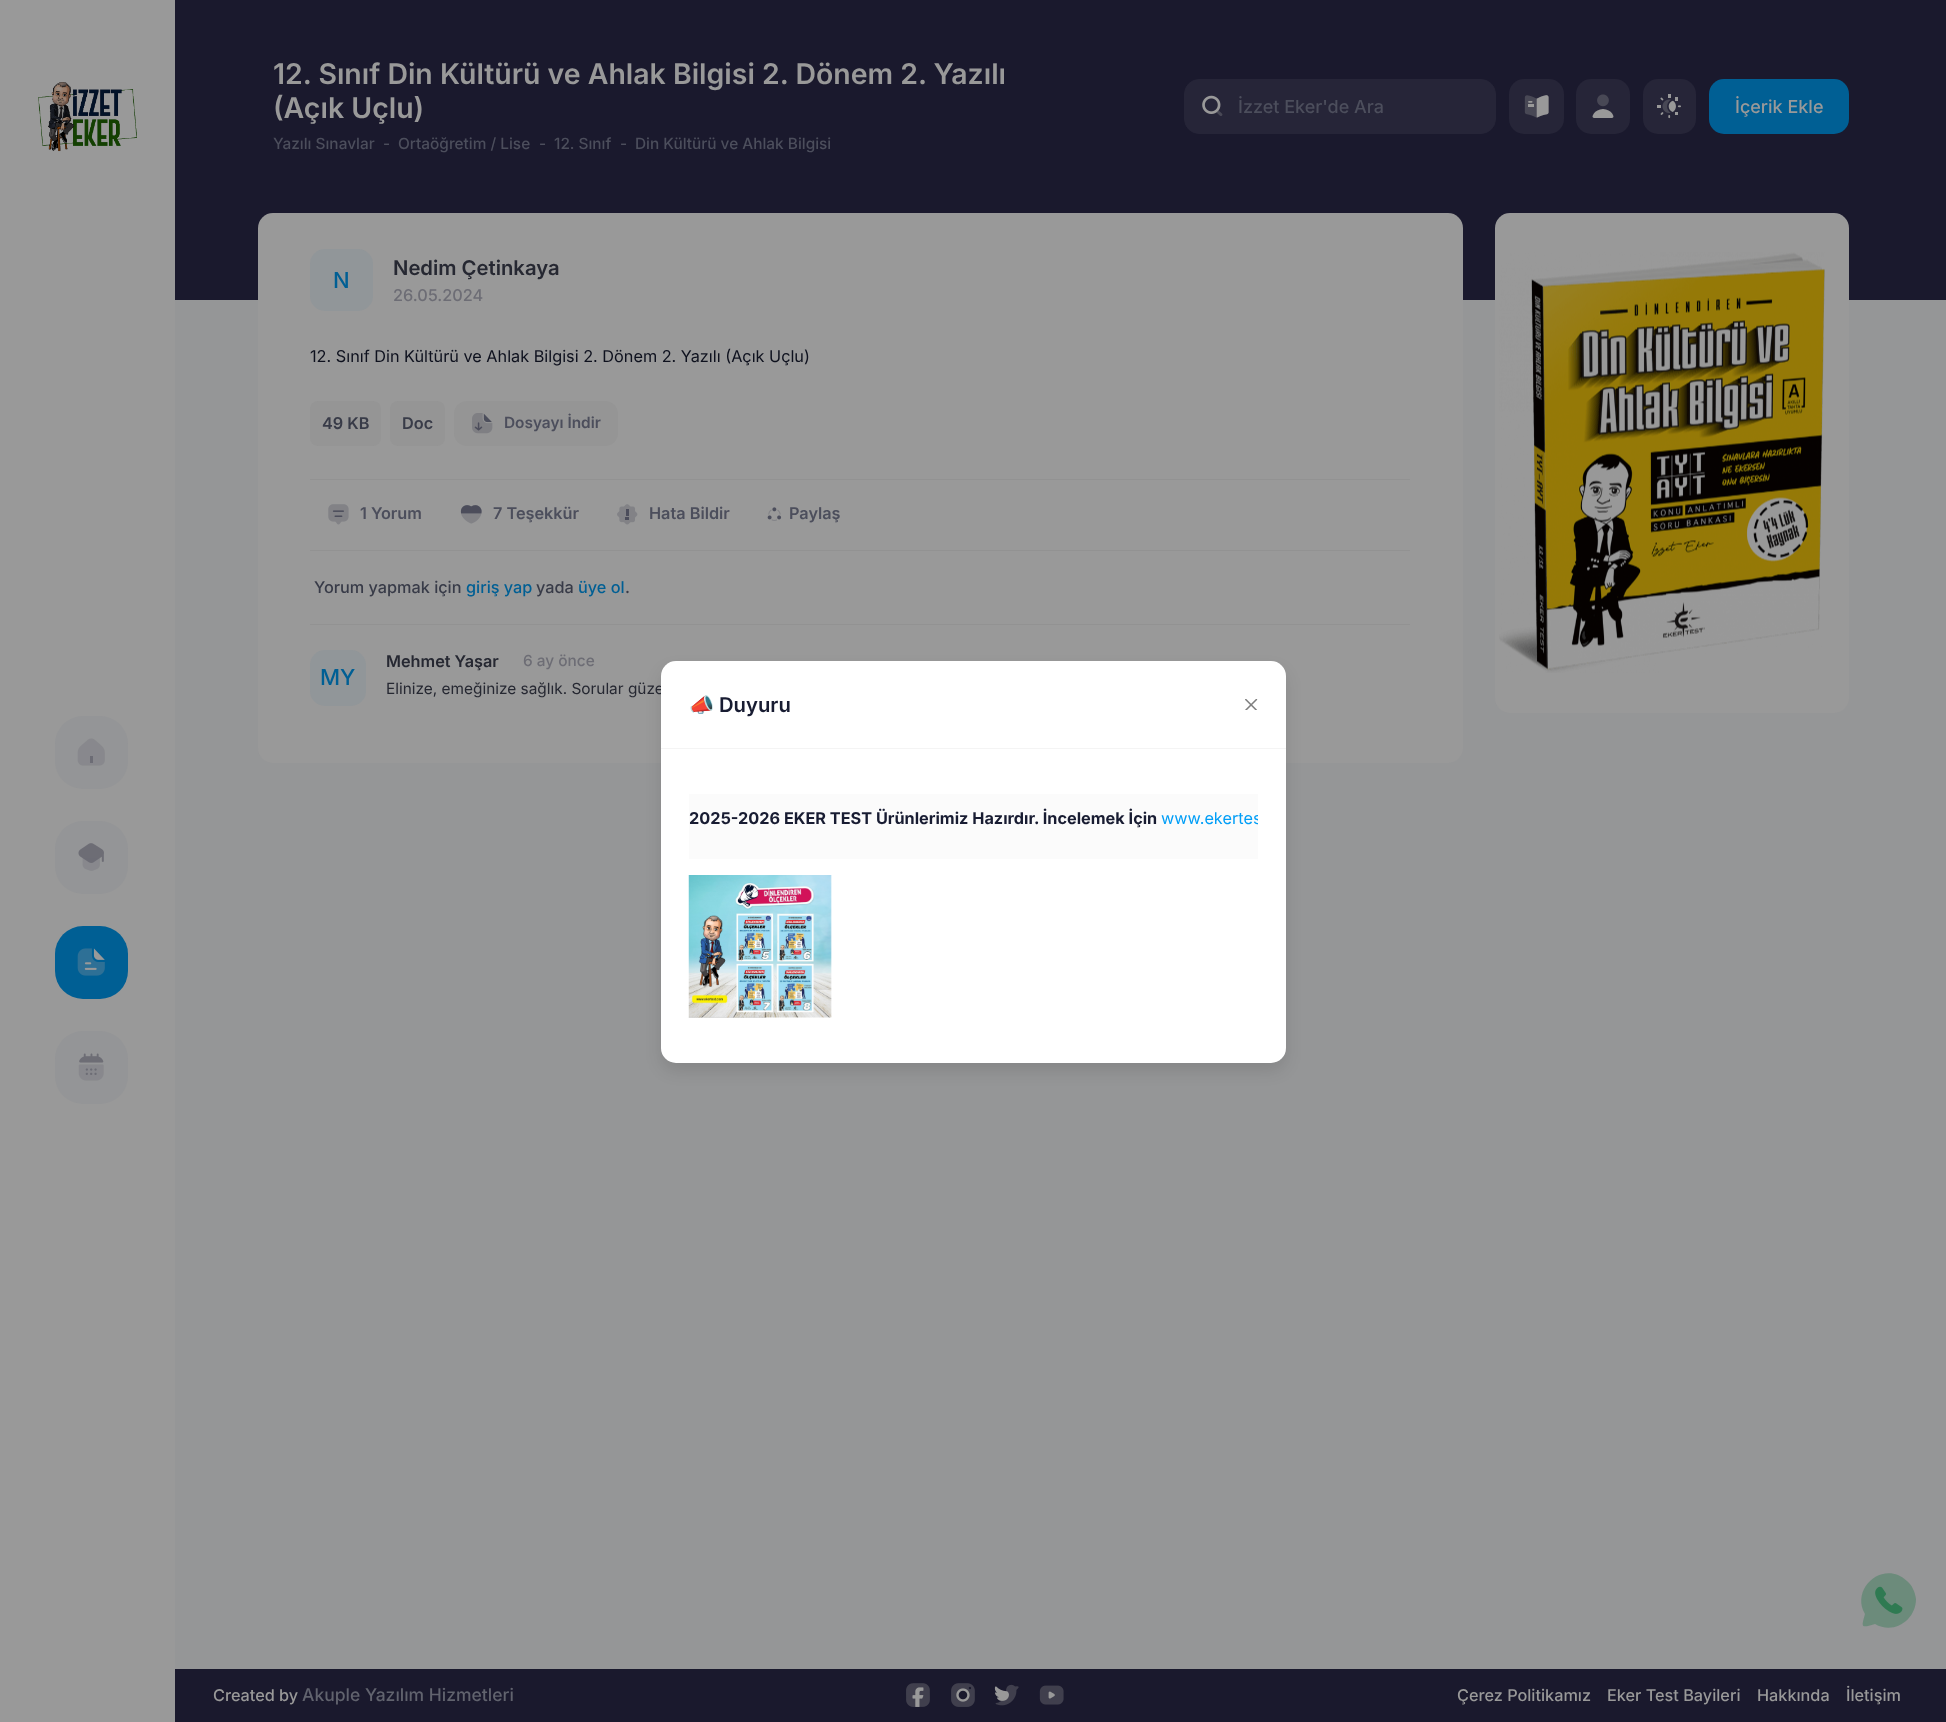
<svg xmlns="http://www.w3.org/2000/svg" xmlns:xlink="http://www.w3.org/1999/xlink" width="1946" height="1722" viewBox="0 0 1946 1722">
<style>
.cls-1{font:600 28.45px Inter;fill:#999999}
.cls-2{font:500 15.4px Inter;fill:#4c4e5c}
.cls-3{font:500 18px Inter;fill:#4c4e5c}
.cls-4{font:500 18px Inter;fill:#999999}
.cls-5{font:500 22px Inter;fill:#005f94}
.cls-6{font:600 20.25px Inter;fill:#262832}
.cls-7{font:500 16.25px Inter;fill:#6d6d75}
.cls-8{font:16.25px Inter;fill:#0e111e}
.cls-9{font:600 16.25px Inter;fill:#383b48}
.cls-10{font:600 15.4px Inter;fill:#4c4e5c}
.cls-11{font:600 16.25px Inter;fill:#4c4e5c}
.cls-12{font:500 16.25px Inter;fill:#383b48}
.cls-13{font:500 16.25px Inter;fill:#005f94}
.cls-14{font:600 16.25px Inter;fill:#262832}
.cls-15{font:500 15.4px Inter;fill:#6d6d75}
.cls-16{font:15.4px Inter;fill:#262832}
.cls-17{font:500 16.25px Inter;fill:#999999}
.cls-18{font:500 17.5px Inter;fill:#61636e}
.cls-19{font:bold 20.25px Noto Color Emoji;fill:#181c32}
.cls-20{font:600 20.25px Inter;fill:#181c32}
.cls-21{font:bold 16.25px Inter;fill:#181c32}
.cls-22{font:16.25px Inter;fill:#009ef7}
</style>
<defs>
<clipPath id="clip1"><rect x="689" y="778" width="569" height="256"/></clipPath>
</defs>
<rect width="100%" height="100%" fill="#959697"/>
<rect fill="#999999" x="0" y="0" width="175" height="1722"/>
<image xlink:href="image0.png" x="38" y="82" width="99" height="70"/>
<rect fill="#949597" x="55" y="716" width="73" height="73" rx="28"/>
<rect fill="#6d6d75" x="90" y="756" width="3" height="7"/>
<image xlink:href="image1.png" x="77" y="738" width="28" height="28"/>
<rect fill="#949597" x="55" y="821" width="73" height="73" rx="28"/>
<image xlink:href="image2.png" x="78" y="843" width="26" height="20"/>
<image xlink:href="image3.png" x="82" y="858" width="18" height="13"/>
<rect fill="#005f94" x="55" y="926" width="73" height="73" rx="28"/>
<image xlink:href="image5.png" x="84" y="948" width="21" height="22"/>
<image xlink:href="image4.png" x="77" y="948" width="28" height="28"/>
<rect fill="#949597" x="55" y="1031" width="73" height="73" rx="28"/>
<image xlink:href="image6.png" x="79" y="1053" width="25" height="22"/>
<image xlink:href="image7.png" x="78" y="1064" width="26" height="17"/>
<rect fill="#1a192d" x="175" y="0" width="1771" height="300"/>
<rect fill="#262538" stroke="#262538" x="1184.5" y="79.5" width="311" height="54" rx="14.5"/>
<image xlink:href="image8.png" x="1202" y="95" width="19" height="19"/>
<image xlink:href="image9.png" x="1216" y="110" width="7" height="6"/>
<rect fill="#262538" x="1509" y="79" width="55" height="55" rx="15"/>
<image xlink:href="image11.png" x="1528" y="101" width="5" height="2"/>
<image xlink:href="image12.png" x="1536" y="95" width="13" height="23"/>
<rect fill="#999999" x="1528" y="104" width="6" height="3"/>
<image xlink:href="image10.png" x="1524" y="95" width="25" height="23"/>
<rect fill="#262538" x="1576" y="79" width="54" height="55" rx="15"/>
<image xlink:href="image13.png" x="1597" y="94" width="12" height="13"/>
<path fill="#999999" d="M1612 118C1616 118 1611.5 109 1603 109C1594.5 109 1590 118 1594 118Z"/>
<rect fill="#262538" x="1643" y="79" width="53" height="55" rx="15"/>
<rect fill="#999999" x="1668" y="94" width="3" height="4"/>
<image xlink:href="image14.png" x="1660" y="97" width="4" height="4"/>
<image xlink:href="image16.png" x="1668" y="100" width="8" height="12"/>
<rect fill="#959596" x="1675" y="97" width="3" height="4"/>
<rect fill="#999999" x="1657" y="105" width="4" height="3"/>
<image xlink:href="image18.png" x="1660" y="112" width="4" height="3"/>
<image xlink:href="image15.png" x="1662" y="99" width="9" height="14"/>
<image xlink:href="image17.png" x="1677" y="105" width="4" height="3"/>
<rect fill="#999999" x="1675" y="112" width="3" height="3"/>
<image xlink:href="image19.png" x="1668" y="115" width="3" height="4"/>
<rect fill="#005f94" x="1709" y="79" width="140" height="55" rx="15"/>
<rect fill="#999999" x="258" y="213" width="1205" height="550" rx="15"/>
<rect fill="#919699" x="310" y="249" width="63" height="62" rx="15"/>
<rect fill="#959595" x="310" y="401" width="71" height="45" rx="8"/>
<rect fill="#959595" x="390" y="401" width="55" height="45" rx="8"/>
<rect fill="#959595" x="454" y="401" width="164" height="45" rx="13"/>
<image xlink:href="image21.png" x="474" y="413" width="18" height="18"/>
<image xlink:href="image20.png" x="472" y="413" width="21" height="21"/>
<rect fill="#929292" x="310" y="479" width="1100" height="1"/>
<image xlink:href="image23.png" x="332" y="510" width="12" height="2"/>
<image xlink:href="image24.png" x="334" y="515" width="9" height="2"/>
<image xlink:href="image22.png" x="328" y="504" width="21" height="21"/>
<image xlink:href="image25.png" x="460" y="505" width="22" height="9"/>
<image xlink:href="image26.png" x="461" y="505" width="21" height="19"/>
<rect fill="#4c4e5c" x="626" y="509" width="3" height="7"/>
<rect fill="#4c4e5c" x="625" y="517" width="4" height="3"/>
<image xlink:href="image27.png" x="617" y="504" width="21" height="21"/>
<image xlink:href="image28.png" x="768" y="509" width="4" height="6"/>
<image xlink:href="image29.png" x="772" y="507" width="5" height="5"/>
<image xlink:href="image30.png" x="777" y="509" width="4" height="6"/>
<image xlink:href="image31.png" x="767" y="515" width="5" height="5"/>
<image xlink:href="image32.png" x="771" y="519" width="6" height="2"/>
<image xlink:href="image33.png" x="777" y="515" width="5" height="5"/>
<rect fill="#929292" x="310" y="550" width="1100" height="1"/>
<rect fill="#929292" x="310" y="624" width="1100" height="1"/>
<rect fill="#919699" x="310" y="650" width="56" height="56" rx="15"/>
<rect fill="#999999" x="1495" y="213" width="354" height="500" rx="15"/>
<image xlink:href="image34.png" x="1499" y="252" width="326" height="421"/>
<rect fill="#1a192d" x="175" y="1669" width="1771" height="53"/>
<image xlink:href="image36.png" x="912" y="1687" width="12" height="20"/>
<image xlink:href="image35.png" x="906" y="1683" width="24" height="24"/>
<image xlink:href="image38.png" x="956" y="1688" width="14" height="14"/>
<image xlink:href="image37.png" x="951" y="1683" width="24" height="24"/>
<image xlink:href="image40.png" x="994" y="1686" width="15" height="15"/>
<image xlink:href="image39.png" x="995" y="1684" width="24" height="22"/>
<image xlink:href="image42.png" x="1048" y="1691" width="7" height="8"/>
<image xlink:href="image41.png" x="1039" y="1685" width="25" height="20"/>
<image xlink:href="image43.png" x="1875" y="1586" width="28" height="28"/>
<path fill="#307b52" fill-opacity="0.4" d="M1916 1599C1915 1592 1912 1585 1907 1581C1884 1559 1850 1588 1865 1614C1861 1628 1861 1628 1875 1624C1894 1635 1916 1620 1916 1599Z"/>
<rect fill="#000000" fill-opacity="0.1" filter="blur(8px)" x="661" y="670" width="625" height="401" rx="15"/>
<text class="cls-1"><tspan x="273" y="84">12. Sınıf Din Kültürü ve Ahlak Bilgisi 2. Dönem 2. Yazılı</tspan><tspan x="273" y="118">(Açık Uçlu)</tspan></text>
<text class="cls-2" x="273" y="149">Yazılı Sınavlar</text>
<text class="cls-2" x="383" y="149">-</text>
<text class="cls-2" x="398" y="149">Ortaöğretim / Lise</text>
<text class="cls-2" x="539" y="149">-</text>
<text class="cls-2" x="554" y="149">12. Sınıf</text>
<text class="cls-2" x="620" y="149">-</text>
<text class="cls-2" x="635" y="149">Din Kültürü ve Ahlak Bilgisi</text>
<text class="cls-3" x="1238" y="113">İzzet Eker'de Ara</text>
<text class="cls-4" x="1735" y="113">İçerik Ekle</text>
<text class="cls-5" x="333" y="288">N</text>
<text class="cls-6" x="393" y="275">Nedim Çetinkaya</text>
<text class="cls-7" x="393" y="301">26.05.2024</text>
<text class="cls-8" x="310" y="362">12. Sınıf Din Kültürü ve Ahlak Bilgisi 2. Dönem 2. Yazılı (Açık Uçlu)</text>
<text class="cls-9" x="322" y="429">49 KB</text>
<text class="cls-9" x="402" y="429">Doc</text>
<text class="cls-10" x="504" y="428">Dosyayı İndir</text>
<text class="cls-11" x="360" y="519">1 Yorum</text>
<text class="cls-11" x="493" y="519">7 Teşekkür</text>
<text class="cls-11" x="649" y="519">Hata Bildir</text>
<text class="cls-11" x="789" y="519">Paylaş</text>
<text class="cls-12" x="314" y="593">Yorum yapmak için</text>
<text class="cls-13" x="466" y="593">giriş yap</text>
<text class="cls-12" x="536" y="593">yada</text>
<text class="cls-13" x="578" y="593">üye ol</text>
<text class="cls-12" x="625" y="593">.</text>
<text class="cls-5" x="320" y="685">MY</text>
<text class="cls-14" x="386" y="667">Mehmet Yaşar</text>
<text class="cls-15" x="523" y="666">6 ay önce</text>
<text class="cls-16" x="386" y="694">Elinize, emeğinize sağlık. Sorular güze</text>
<text class="cls-17" x="213" y="1701">Created by</text>
<text class="cls-18" x="302" y="1701">Akuple Yazılım Hizmetleri</text>
<text class="cls-17" x="1457" y="1701">Çerez Politikamız</text>
<text class="cls-17" x="1607" y="1701">Eker Test Bayileri</text>
<text class="cls-17" x="1757" y="1701">Hakkında</text>
<text class="cls-17" x="1846" y="1701">İletişim</text>
<rect fill="#ffffff" x="661" y="661" width="625" height="402" rx="15"/>
<rect fill="#f4f4f4" x="661" y="748" width="625" height="1"/>
<text class="cls-19" x="689" y="712">📣</text>
<text class="cls-20" x="719" y="712">Duyuru</text>
<image xlink:href="image44.png" x="1245" y="699" width="13" height="11"/>
<rect fill="#fbfbfb" x="689" y="794" width="569" height="65"/>
<text class="cls-21" x="689" y="824">2025-2026 EKER TEST Ürünlerimiz Hazırdır. İncelemek İçin</text>
<g clip-path="url(#clip1)">
<text class="cls-22" x="1161" y="824">www.ekertes</text>
</g>
<image xlink:href="image45.png" x="688" y="875" width="144" height="143"/>
</svg>
